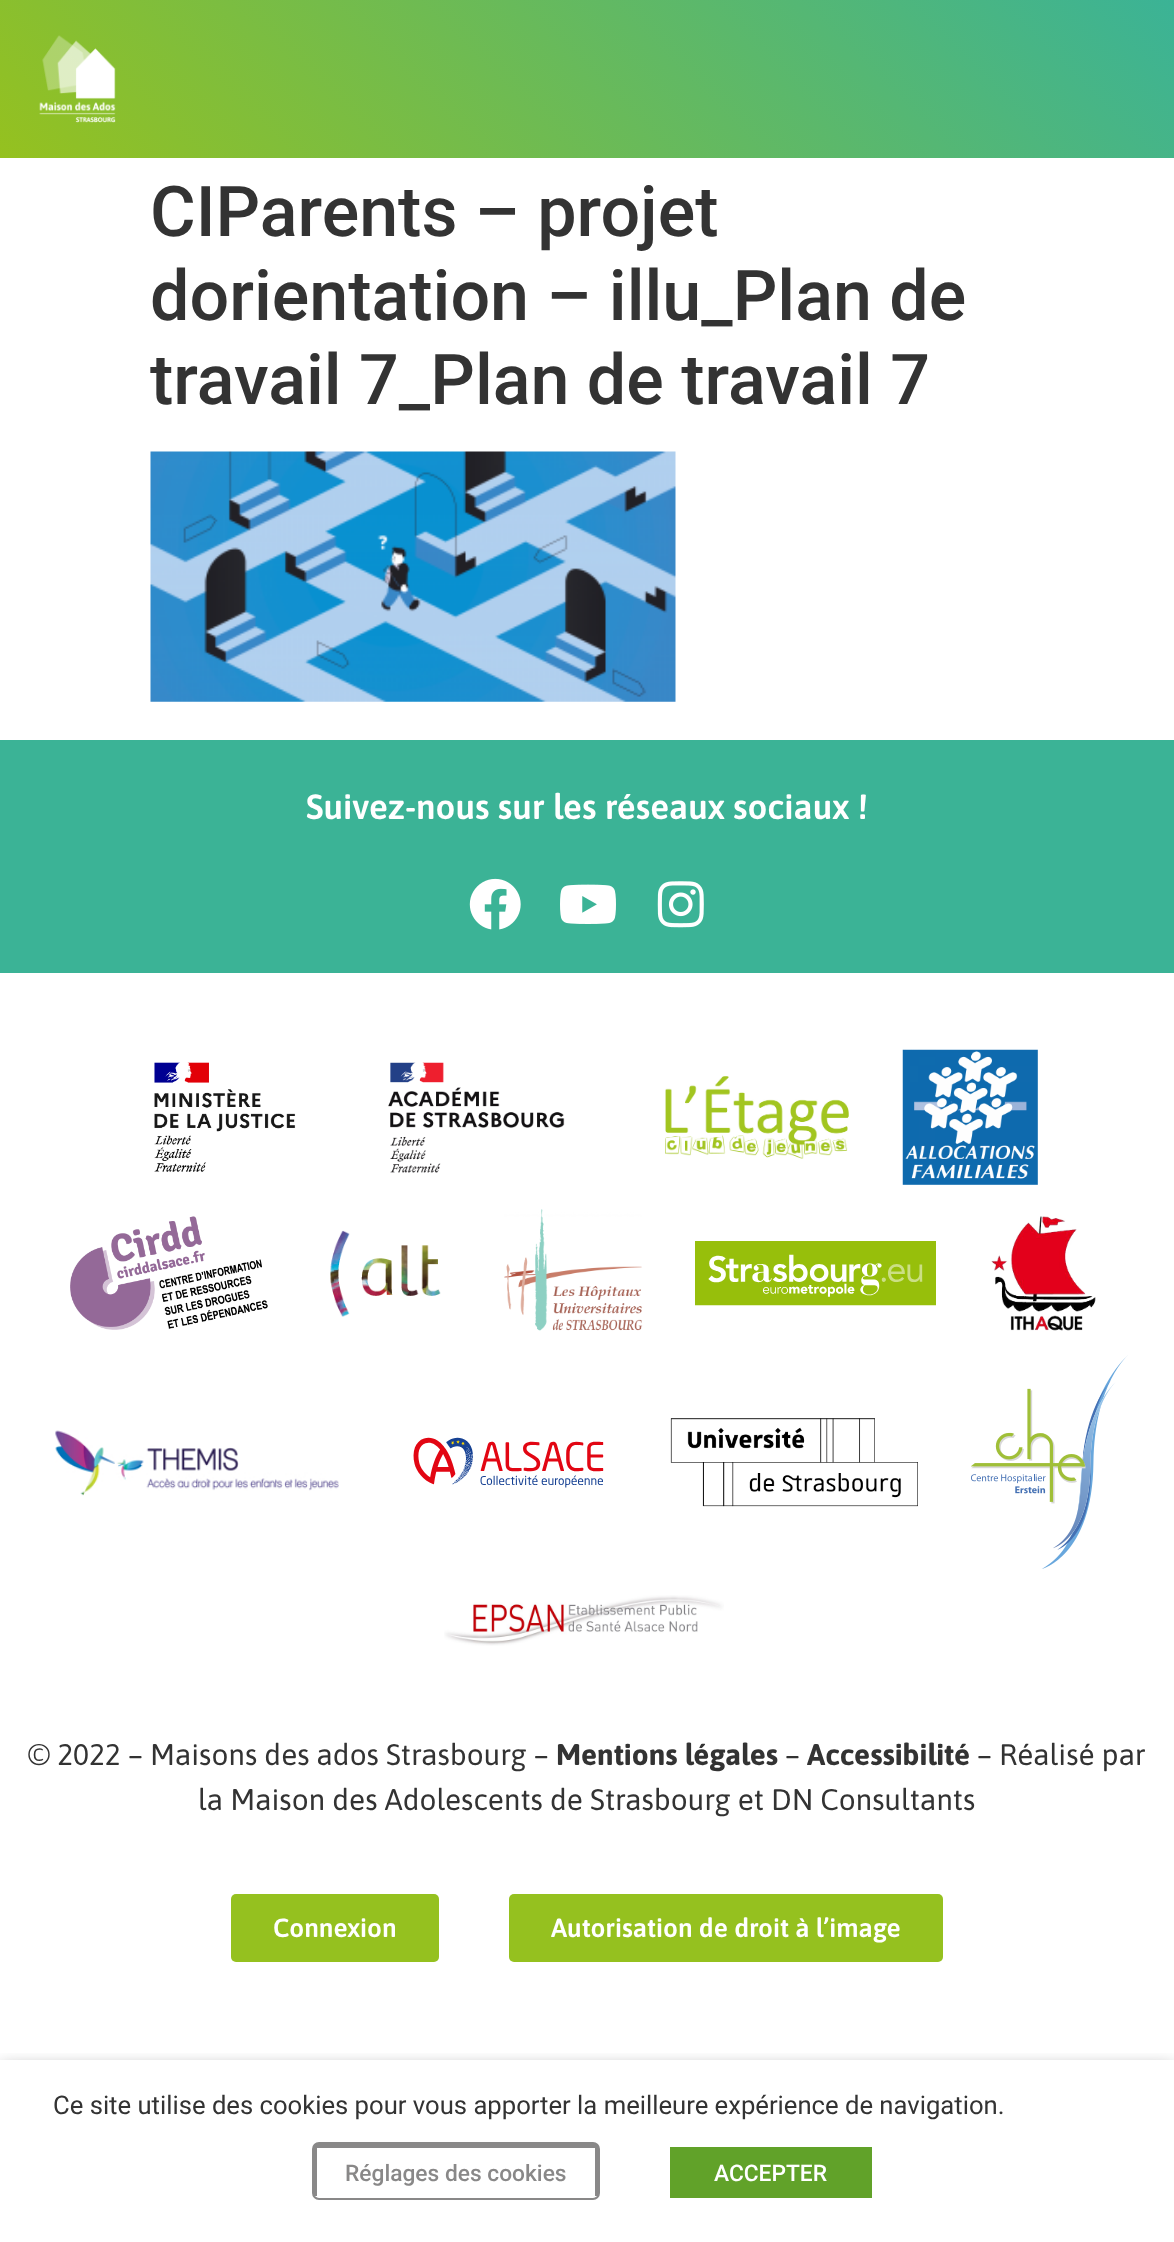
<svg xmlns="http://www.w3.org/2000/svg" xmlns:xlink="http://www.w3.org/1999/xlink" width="1174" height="2242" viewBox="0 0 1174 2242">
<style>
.cls-1{font:500 70px Roboto;fill:#333333}
.cls-2{font:600 35px Asap;fill:#ffffff}
.cls-3{font:29.75px Asap;fill:#333333}
.cls-4{font:bold 29.75px Asap;fill:#333333}
.cls-5{font:600 26.25px Asap;fill:#ffffff}
.cls-6{font:25.65px Roboto;fill:#333333}
.cls-7{font:500 22.75px Roboto;fill:#898888}
.cls-8{font:500 22.75px Roboto;fill:#ffffff}
</style>
<defs>
<linearGradient id="g1" gradientUnits="userSpaceOnUse" x1="254" y1="412" x2="920" y2="-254"><stop offset="0" stop-color="#95c11f"/><stop offset="1" stop-color="#3bb396"/></linearGradient>
<clipPath id="clip1"><rect x="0" y="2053" width="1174" height="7"/></clipPath>
</defs>
<rect width="100%" height="100%" fill="#ffffff"/>
<rect fill="url(#g1)" x="0" y="0" width="1174" height="158"/>
<image xlink:href="image0.png" x="39" y="35" width="77" height="88"/>
<image xlink:href="image1.png" x="150" y="451" width="526" height="251"/>
<rect fill="#3bb396" x="0" y="740" width="1174" height="233"/>
<image xlink:href="image2.png" x="469" y="878" width="52" height="52"/>
<image xlink:href="image3.png" x="560" y="884" width="56" height="40"/>
<image xlink:href="image4.png" x="657" y="881" width="47" height="47"/>
<image xlink:href="image5.png" x="154" y="1062" width="142" height="110"/>
<image xlink:href="image6.png" x="388" y="1062" width="177" height="111"/>
<image xlink:href="image7.png" x="665" y="1076" width="184" height="83"/>
<image xlink:href="image8.png" x="902" y="1049" width="136" height="136"/>
<image xlink:href="image9.png" x="70" y="1216" width="198" height="114"/>
<image xlink:href="image10.png" x="330" y="1230" width="111" height="87"/>
<image xlink:href="image11.png" x="504" y="1209" width="139" height="122"/>
<image xlink:href="image12.png" x="695" y="1241" width="241" height="65"/>
<image xlink:href="image13.png" x="991" y="1216" width="105" height="115"/>
<image xlink:href="image14.png" x="55" y="1430" width="284" height="66"/>
<image xlink:href="image15.png" x="413" y="1437" width="191" height="51"/>
<image xlink:href="image16.png" x="670" y="1418" width="248" height="89"/>
<image xlink:href="image17.png" x="971" y="1355" width="157" height="214"/>
<image xlink:href="image18.png" x="444" y="1595" width="280" height="51"/>
<rect fill="#95c11f" x="231" y="1894" width="208" height="68" rx="5"/>
<rect fill="#95c11f" x="509" y="1894" width="434" height="68" rx="5"/>
<g clip-path="url(#clip1)">
<rect fill="#000000" fill-opacity="0.5" filter="blur(9px)" x="0" y="2069" width="1174" height="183"/>
</g>
<rect fill="none" stroke="#898888" stroke-width="2" x="313" y="2143" width="286" height="56" rx="6"/>
<rect fill="#898888" x="315" y="2144" width="282" height="4"/>
<rect fill="#898888" x="595" y="2146" width="3" height="50"/>
<rect fill="#898888" x="314" y="2146" width="3" height="50"/>
<rect fill="#61a229" x="670" y="2147" width="202" height="51"/>
<text class="cls-1"><tspan x="150" y="236">CIParents – projet</tspan><tspan x="150" y="320">dorientation – illu_Plan de</tspan><tspan x="150" y="404">travail 7_Plan de travail 7</tspan></text>
<text class="cls-2" x="306" y="819">Suivez-nous sur les réseaux sociaux !</text>
<text class="cls-3" x="28" y="1765">© 2022 – Maisons des ados Strasbourg –</text>
<text class="cls-4" x="556" y="1765">Mentions légales</text>
<text class="cls-3" x="785" y="1765">–</text>
<text class="cls-4" x="807" y="1765">Accessibilité</text>
<text class="cls-3" x="977" y="1765">– Réalisé par</text>
<text class="cls-3" x="198" y="1810">la Maison des Adolescents de Strasbourg et DN Consultants</text>
<text class="cls-5" x="273" y="1937">Connexion</text>
<text class="cls-5" x="551" y="1937">Autorisation de droit à l’image</text>
<text class="cls-6" x="53" y="2114">Ce site utilise des cookies pour vous apporter la meilleure expérience de navigation.</text>
<text class="cls-7" x="345" y="2181">Réglages des cookies</text>
<text class="cls-8" x="714" y="2181">ACCEPTER</text>
</svg>
